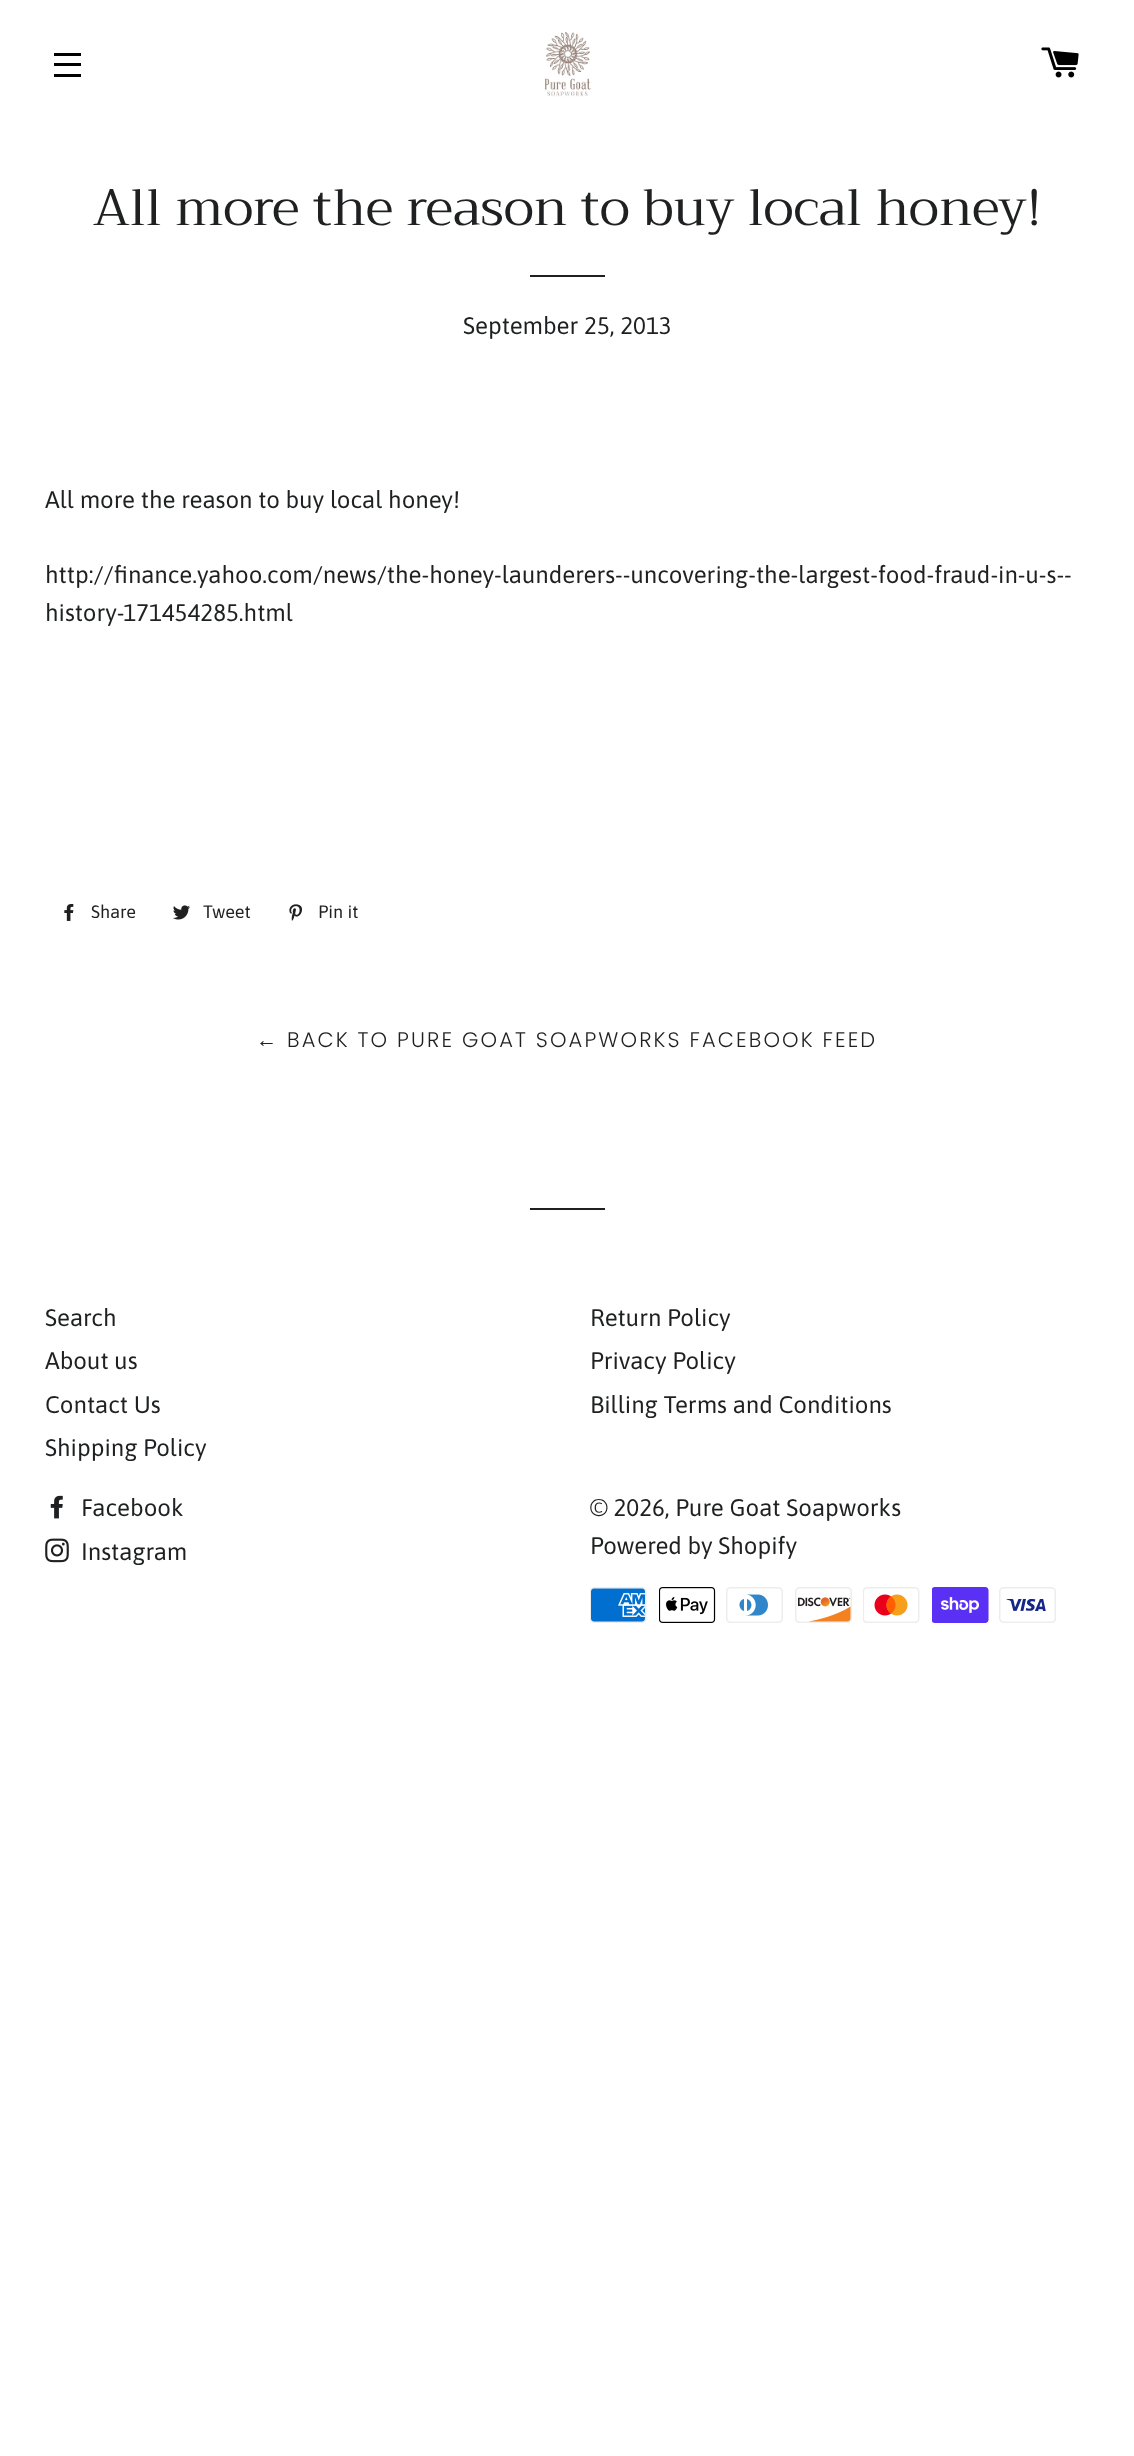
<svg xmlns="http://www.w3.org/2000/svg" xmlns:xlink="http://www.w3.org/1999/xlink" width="1134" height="2456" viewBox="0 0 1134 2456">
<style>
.cls-1{font:51px Trirong;fill:#1f2021}
.cls-2{font:24px Asap;fill:#1f2021}
.cls-3{font:18px Asap;fill:#1f2021}
.cls-4{font:21px Liberation Sans;letter-spacing:2.1px;fill:#1f2021}
.cls-5{font:300 21px Poppins;letter-spacing:2.1px;fill:#1f2021}
</style>
<rect width="100%" height="100%" fill="#ffffff"/>
<rect fill="#000000" x="54" y="53" width="27" height="3"/>
<rect fill="#000000" x="54" y="63" width="27" height="3"/>
<rect fill="#000000" x="54" y="74" width="27" height="3"/>
<image xlink:href="image0.png" x="544" y="31" width="48" height="66"/>
<image xlink:href="image1.png" x="1041" y="47" width="38" height="31"/>
<rect fill="#1f2021" x="530" y="275" width="75" height="2"/>
<image xlink:href="image2.png" x="64" y="904" width="10" height="17"/>
<image xlink:href="image3.png" x="173" y="905" width="17" height="15"/>
<image xlink:href="image4.png" x="289" y="904" width="13" height="17"/>
<rect fill="#1f2021" x="530" y="1208" width="75" height="2"/>
<image xlink:href="image5.png" x="50" y="1495" width="13" height="24"/>
<image xlink:href="image6.png" x="45" y="1538" width="24" height="25"/>
<image xlink:href="image7.png" x="590" y="1587" width="57" height="36"/>
<image xlink:href="image8.png" x="659" y="1587" width="57" height="36"/>
<image xlink:href="image9.png" x="726" y="1587" width="57" height="36"/>
<image xlink:href="image10.png" x="795" y="1587" width="57" height="36"/>
<image xlink:href="image11.png" x="863" y="1587" width="57" height="36"/>
<image xlink:href="image12.png" x="932" y="1587" width="57" height="36"/>
<image xlink:href="image13.png" x="999" y="1587" width="57" height="36"/>
<text class="cls-1" x="93" y="225">All more the reason to buy local honey!</text>
<text class="cls-2" x="463" y="334">September 25, 2013</text>
<text class="cls-2" x="45" y="508">All more the reason to buy local honey!</text>
<text class="cls-2"><tspan x="45" y="583">http://finance.yahoo.com/news/the-honey-launderers--uncovering-the-largest-food-fraud-in-u-s--</tspan><tspan x="45" y="621">history-171454285.html</tspan></text>
<text class="cls-3" x="91" y="918">Share</text>
<text class="cls-3" x="203" y="918">Tweet</text>
<text class="cls-3" x="318" y="918">Pin it</text>
<text class="cls-4" x="256" y="1047">←</text>
<text class="cls-5" x="287" y="1047">BACK TO PURE GOAT SOAPWORKS FACEBOOK FEED</text>
<text class="cls-2"><tspan x="45" y="1326">Search</tspan><tspan x="45" y="1369">About us</tspan><tspan x="45" y="1413">Contact Us</tspan><tspan x="45" y="1456">Shipping Policy</tspan></text>
<text class="cls-2"><tspan x="590" y="1326">Return Policy</tspan><tspan x="590" y="1369">Privacy Policy</tspan><tspan x="590" y="1413">Billing Terms and Conditions</tspan></text>
<text class="cls-2"><tspan x="81" y="1516">Facebook</tspan><tspan x="81" y="1560">Instagram</tspan></text>
<text class="cls-2"><tspan x="590" y="1516">© 2026, Pure Goat Soapworks</tspan><tspan x="590" y="1554">Powered by Shopify</tspan></text>
</svg>
